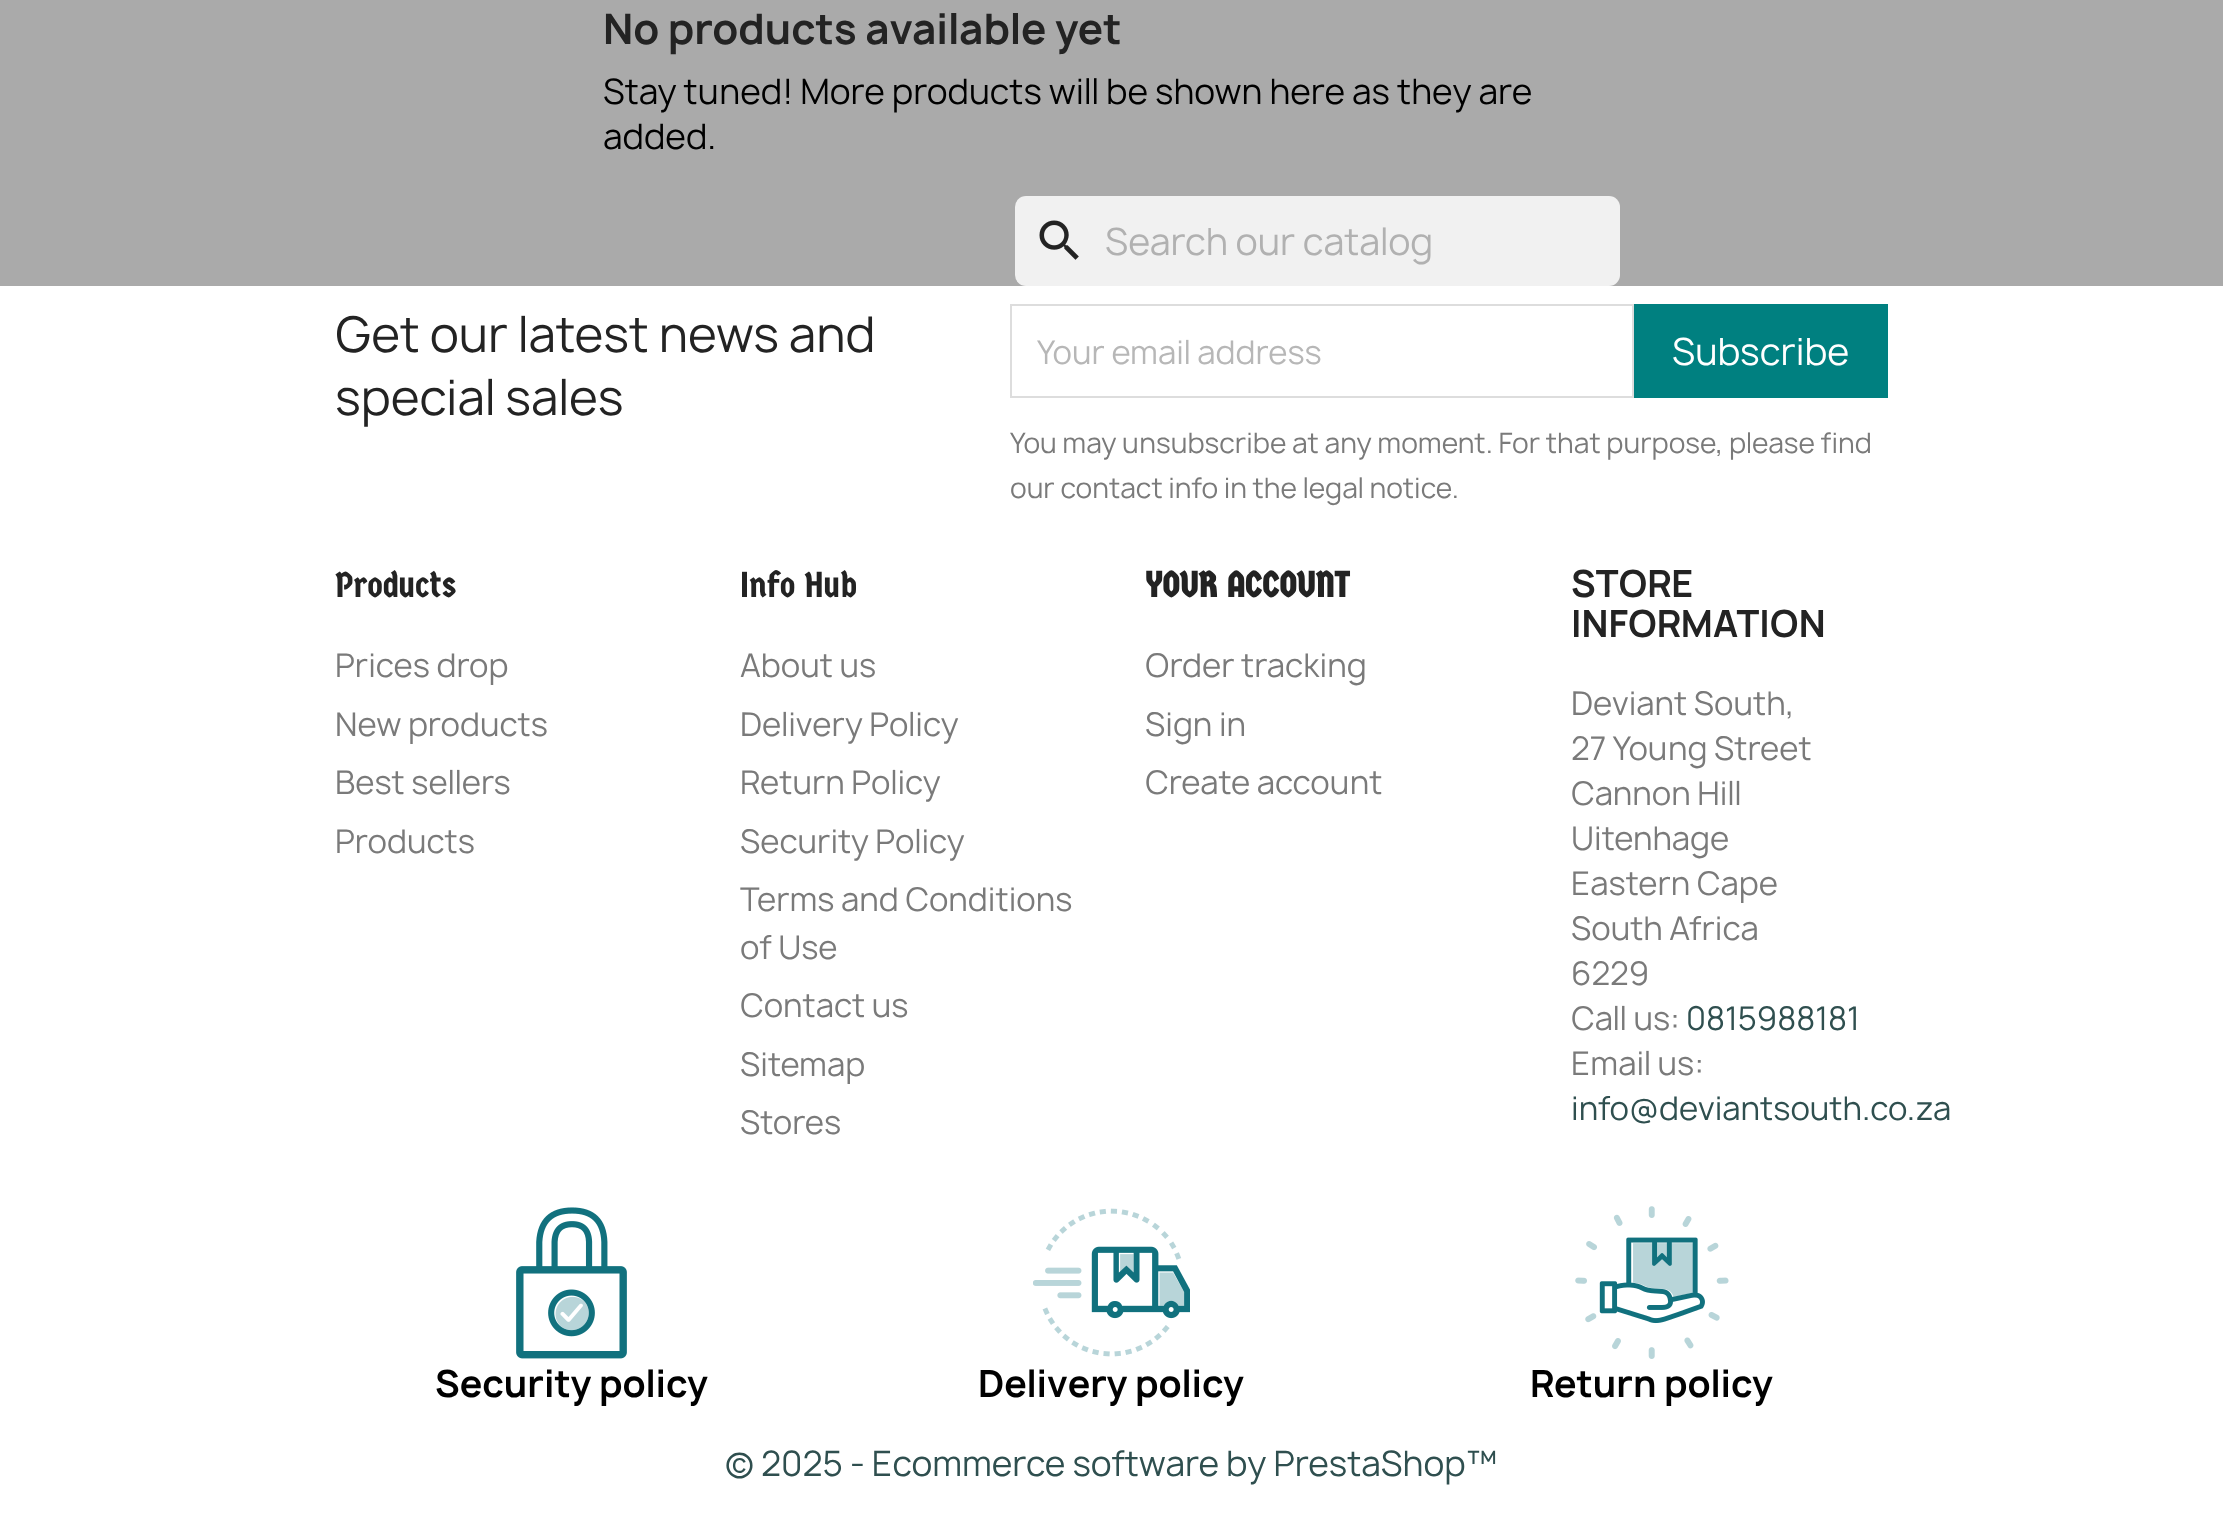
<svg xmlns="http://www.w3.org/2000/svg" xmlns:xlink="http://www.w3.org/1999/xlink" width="2223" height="1522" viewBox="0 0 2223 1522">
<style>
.cls-1{font:bold 40.5px Manrope;fill:#232323}
.cls-2{font:33.75px Manrope;fill:#000000}
.cls-3{font:36px Manrope;fill:#b1b1b1}
.cls-4{font:47.25px Manrope;fill:#232323}
.cls-5{font:31.5px Manrope;fill:#b7b7b7}
.cls-6{font:36px Manrope;fill:#ffffff}
.cls-7{font:27px Manrope;fill:#7a7a7a}
.cls-8{font:36px Germania One;fill:#232323}
.cls-9{font:31.5px Manrope;fill:#7a7a7a}
.cls-10{font:bold 36px Germania One;fill:#232323}
.cls-11{font:bold 36px Manrope;fill:#232323}
.cls-12{font:31.5px Manrope;fill:#2f4f4f}
.cls-13{font:bold 36px Manrope;fill:#000000}
.cls-14{font:33.75px Manrope;fill:#2f4f4f}
</style>
<rect width="100%" height="100%" fill="#ffffff"/>
<rect fill="#aaaaaa" x="0" y="0" width="2223" height="286"/>
<rect fill="#f1f1f1" x="1015" y="196" width="605" height="90" rx="11"/>
<image xlink:href="image0.png" x="1039" y="220" width="40" height="40"/>
<rect fill="none" stroke="#dddddd" stroke-width="2" x="1011" y="305" width="622" height="92"/>
<rect fill="#008080" x="1634" y="304" width="254" height="94"/>
<image xlink:href="image1.png" x="516" y="1207" width="111" height="152"/>
<image xlink:href="image2.png" x="1033" y="1208" width="157" height="149"/>
<image xlink:href="image3.png" x="1575" y="1206" width="154" height="153"/>
<text class="cls-1" x="603" y="44">No products available yet</text>
<text class="cls-2"><tspan x="603" y="104">Stay tuned! More products will be shown here as they are</tspan><tspan x="603" y="149">added.</tspan></text>
<text class="cls-3" x="1105" y="255">Search our catalog</text>
<text class="cls-4"><tspan x="335" y="352">Get our latest news and</tspan><tspan x="335" y="415">special sales</tspan></text>
<text class="cls-5" x="1037" y="364">Your email address</text>
<text class="cls-6" x="1672" y="365">Subscribe</text>
<text class="cls-7"><tspan x="1010" y="453">You may unsubscribe at any moment. For that purpose, please find</tspan><tspan x="1010" y="498">our contact info in the legal notice.</tspan></text>
<text class="cls-8" x="335" y="597">Products</text>
<text class="cls-9"><tspan x="335" y="677">Prices drop</tspan><tspan x="335" y="736">New products</tspan><tspan x="335" y="794">Best sellers</tspan><tspan x="335" y="853">Products</tspan></text>
<text class="cls-8" x="740" y="597">Info Hub</text>
<text class="cls-9"><tspan x="740" y="677">About us</tspan><tspan x="740" y="736">Delivery Policy</tspan><tspan x="740" y="794">Return Policy</tspan><tspan x="740" y="853">Security Policy</tspan><tspan x="740" y="911">Terms and Conditions</tspan><tspan x="740" y="959">of Use</tspan><tspan x="740" y="1017">Contact us</tspan><tspan x="740" y="1076">Sitemap</tspan><tspan x="740" y="1134">Stores</tspan></text>
<text class="cls-10" x="1145" y="597">YOUR ACCOUNT</text>
<text class="cls-9"><tspan x="1145" y="677">Order tracking</tspan><tspan x="1145" y="736">Sign in</tspan><tspan x="1145" y="794">Create account</tspan></text>
<text class="cls-11"><tspan x="1571" y="597">STORE</tspan><tspan x="1571" y="637">INFORMATION</tspan></text>
<text class="cls-9"><tspan x="1571" y="715">Deviant South,</tspan><tspan x="1571" y="760">27 Young Street</tspan><tspan x="1571" y="805">Cannon Hill</tspan><tspan x="1571" y="850">Uitenhage</tspan><tspan x="1571" y="895">Eastern Cape</tspan><tspan x="1571" y="940">South Africa</tspan><tspan x="1571" y="985">6229</tspan><tspan x="1571" y="1030">Call us:</tspan></text>
<text class="cls-12" x="1686" y="1030">0815988181</text>
<text class="cls-9" x="1571" y="1075">Email us:</text>
<text class="cls-12" x="1571" y="1120">info@deviantsouth.co.za</text>
<text class="cls-13" x="435" y="1397">Security policy</text>
<text class="cls-13" x="978" y="1397">Delivery policy</text>
<text class="cls-13" x="1530" y="1397">Return policy</text>
<text class="cls-14" x="725" y="1476">© 2025 - Ecommerce software by PrestaShop™</text>
</svg>
